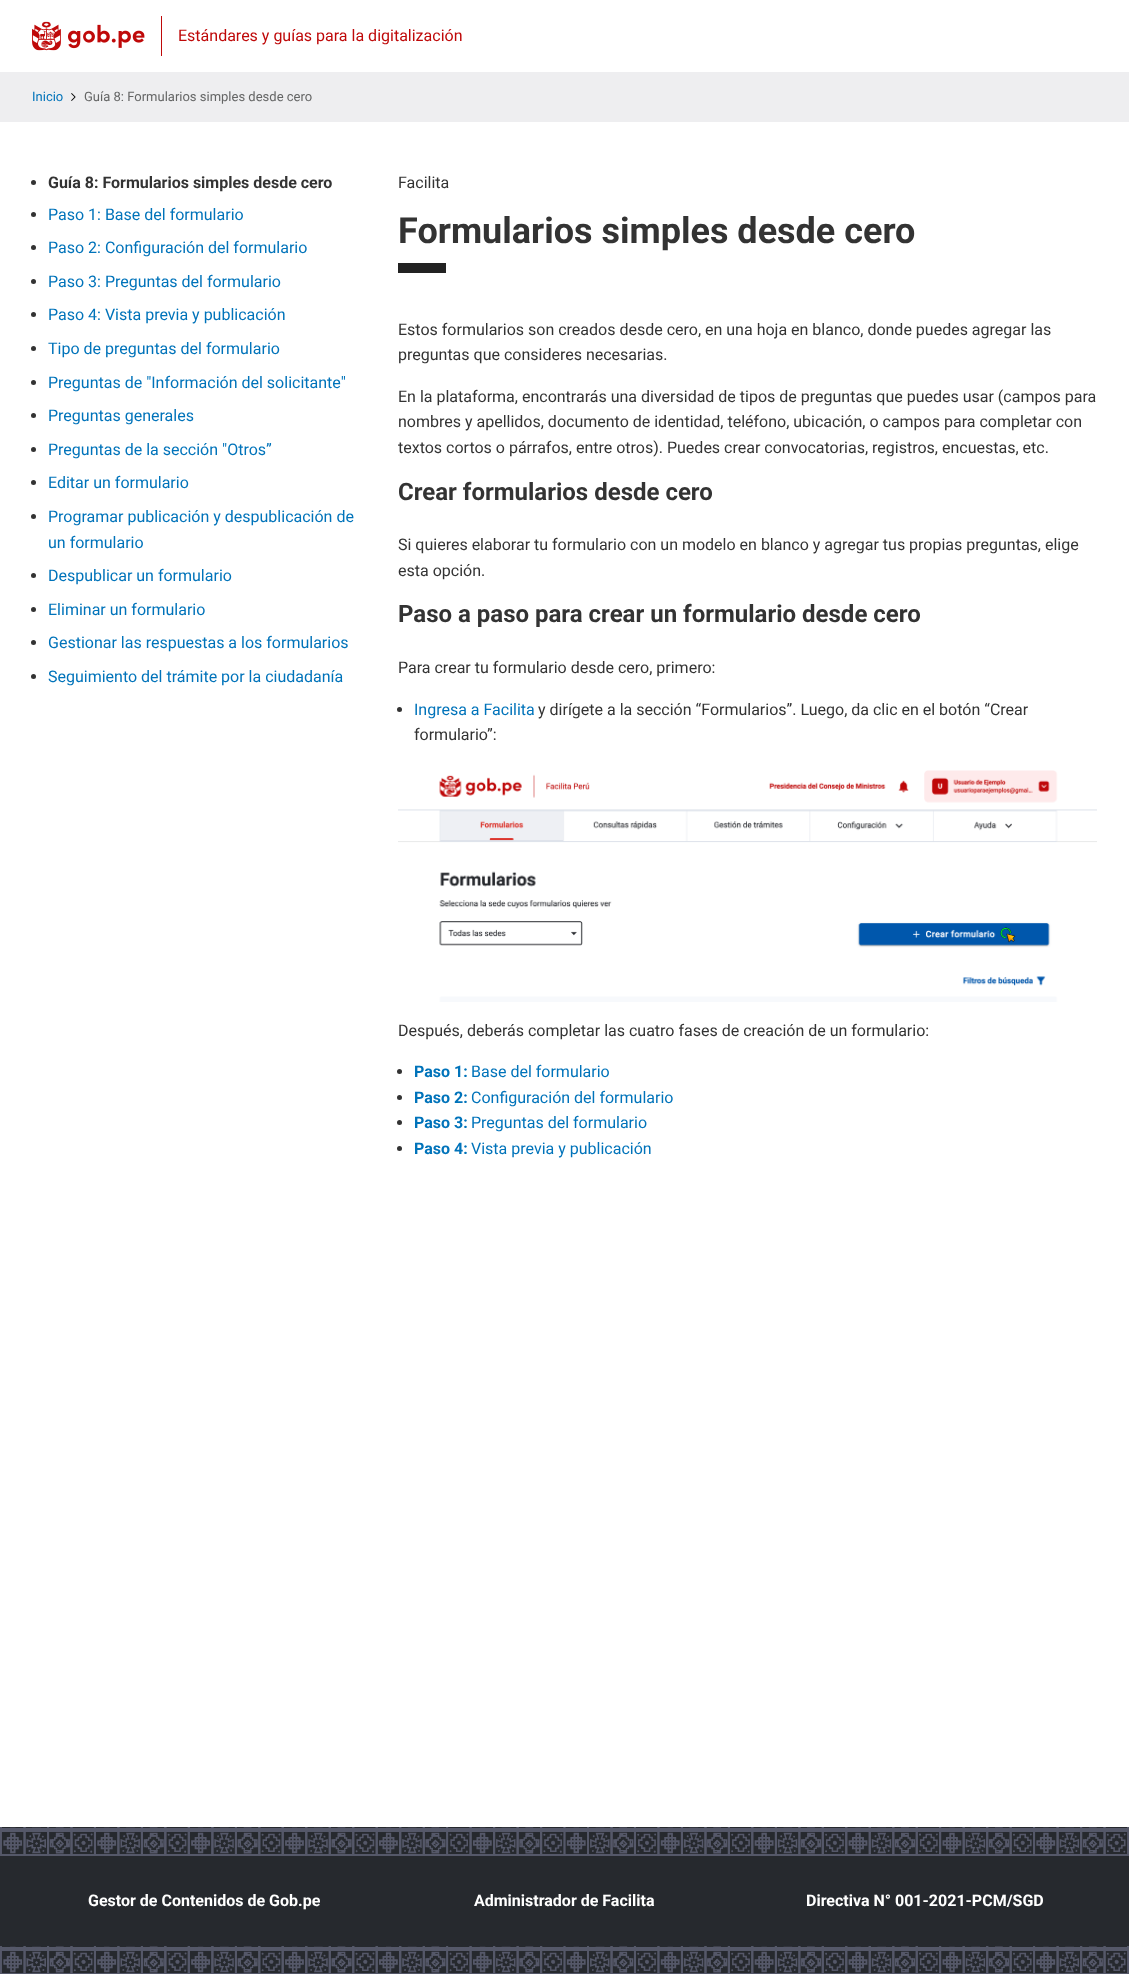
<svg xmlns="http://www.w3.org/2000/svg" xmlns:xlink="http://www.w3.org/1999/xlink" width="1129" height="1974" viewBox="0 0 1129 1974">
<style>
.cls-1{font:16px Roboto;fill:#bf0909}
.cls-2{font:13px Roboto;fill:#0073ba}
.cls-3{font:13px Roboto;fill:#646565}
.cls-4{font:bold 16px Roboto;fill:#333333}
.cls-5{font:16px Roboto;fill:#0073ba}
.cls-6{font:16px Roboto;fill:#333333}
.cls-7{font:bold 36px Roboto;fill:#333333}
.cls-8{font:bold 24px Roboto;fill:#333333}
.cls-9{font:bold 16px Roboto;fill:#0073ba}
.cls-10{font:bold 16px Roboto;fill:#ffffff}
</style>
<rect width="100%" height="100%" fill="#ffffff"/>
<image xlink:href="image0.png" x="32" y="21" width="113" height="30"/>
<rect fill="#bf0909" x="161" y="16" width="1" height="40"/>
<rect fill="#eeeef0" x="0" y="72" width="1129" height="50"/>
<image xlink:href="image1.png" x="71" y="93" width="5" height="8"/>
<circle fill="#333333" cx="33.5" cy="182.5" r="2.5"/>
<circle fill="#333333" cx="33.5" cy="214.5" r="2.5"/>
<circle fill="#333333" cx="33.5" cy="247.5" r="2.5"/>
<circle fill="#333333" cx="33.5" cy="281.5" r="2.5"/>
<circle fill="#333333" cx="33.5" cy="314.5" r="2.5"/>
<circle fill="#333333" cx="33.5" cy="348.5" r="2.5"/>
<circle fill="#333333" cx="33.5" cy="382.5" r="2.5"/>
<circle fill="#333333" cx="33.5" cy="415.5" r="2.5"/>
<circle fill="#333333" cx="33.5" cy="449.5" r="2.5"/>
<circle fill="#333333" cx="33.5" cy="482.5" r="2.5"/>
<circle fill="#333333" cx="33.5" cy="516.5" r="2.5"/>
<circle fill="#333333" cx="33.5" cy="575.5" r="2.5"/>
<circle fill="#333333" cx="33.5" cy="609.5" r="2.5"/>
<circle fill="#333333" cx="33.5" cy="642.5" r="2.5"/>
<circle fill="#333333" cx="33.5" cy="676.5" r="2.5"/>
<rect fill="#222222" x="398" y="263" width="48" height="10"/>
<circle fill="#333333" cx="399.5" cy="709.5" r="2.5"/>
<image xlink:href="image2.png" x="398" y="770" width="699" height="232"/>
<circle fill="#333333" cx="399.5" cy="1071.5" r="2.5"/>
<circle fill="#333333" cx="399.5" cy="1097.5" r="2.5"/>
<circle fill="#333333" cx="399.5" cy="1122.5" r="2.5"/>
<circle fill="#333333" cx="399.5" cy="1148.5" r="2.5"/>
<rect fill="#26292e" x="0" y="1827" width="1129" height="147"/>
<image xlink:href="image3.png" x="0" y="1827" width="1129" height="29"/>
<image xlink:href="image4.png" x="0" y="1946" width="1129" height="28"/>
<text class="cls-1" x="178" y="41">Estándares y guías para la digitalización</text>
<text class="cls-2" x="32" y="101">Inicio</text>
<text class="cls-3" x="84" y="101">Guía 8: Formularios simples desde cero</text>
<text class="cls-4" x="48" y="188">Guía 8: Formularios simples desde cero</text>
<text class="cls-5" x="48" y="220">Paso 1: Base del formulario</text>
<text class="cls-5" x="48" y="253">Paso 2: Configuración del formulario</text>
<text class="cls-5" x="48" y="287">Paso 3: Preguntas del formulario</text>
<text class="cls-5" x="48" y="320">Paso 4: Vista previa y publicación</text>
<text class="cls-5" x="48" y="354">Tipo de preguntas del formulario</text>
<text class="cls-5" x="48" y="388">Preguntas de "Información del solicitante"</text>
<text class="cls-5" x="48" y="421">Preguntas generales</text>
<text class="cls-5" x="48" y="455">Preguntas de la sección "Otros”</text>
<text class="cls-5" x="48" y="488">Editar un formulario</text>
<text class="cls-5"><tspan x="48" y="522">Programar publicación y despublicación de</tspan><tspan x="48" y="548">un formulario</tspan></text>
<text class="cls-5" x="48" y="581">Despublicar un formulario</text>
<text class="cls-5" x="48" y="615">Eliminar un formulario</text>
<text class="cls-5" x="48" y="648">Gestionar las respuestas a los formularios</text>
<text class="cls-5" x="48" y="682">Seguimiento del trámite por la ciudadanía</text>
<text class="cls-6" x="398" y="188">Facilita</text>
<text class="cls-7" x="398" y="243">Formularios simples desde cero</text>
<text class="cls-6"><tspan x="398" y="335">Estos formularios son creados desde cero, en una hoja en blanco, donde puedes agregar las</tspan><tspan x="398" y="360">preguntas que consideres necesarias.</tspan></text>
<text class="cls-6"><tspan x="398" y="402">En la plataforma, encontrarás una diversidad de tipos de preguntas que puedes usar (campos para</tspan><tspan x="398" y="427">nombres y apellidos, documento de identidad, teléfono, ubicación, o campos para completar con</tspan><tspan x="398" y="453">textos cortos o párrafos, entre otros). Puedes crear convocatorias, registros, encuestas, etc.</tspan></text>
<text class="cls-8" x="398" y="500">Crear formularios desde cero</text>
<text class="cls-6"><tspan x="398" y="550">Si quieres elaborar tu formulario con un modelo en blanco y agregar tus propias preguntas, elige</tspan><tspan x="398" y="576">esta opción.</tspan></text>
<text class="cls-8" x="398" y="622">Paso a paso para crear un formulario desde cero</text>
<text class="cls-6" x="398" y="673">Para crear tu formulario desde cero, primero:</text>
<text class="cls-5" x="414" y="715">Ingresa a Facilita</text>
<text class="cls-6" x="538" y="715">y dirígete a la sección “Formularios”. Luego, da clic en el botón “Crear</text>
<text class="cls-6" x="414" y="740">formulario”:</text>
<text class="cls-6" x="398" y="1036">Después, deberás completar las cuatro fases de creación de un formulario:</text>
<text class="cls-9" x="414" y="1077">Paso 1:</text>
<text class="cls-5" x="471" y="1077">Base del formulario</text>
<text class="cls-9" x="414" y="1103">Paso 2:</text>
<text class="cls-5" x="471" y="1103">Configuración del formulario</text>
<text class="cls-9" x="414" y="1128">Paso 3:</text>
<text class="cls-5" x="471" y="1128">Preguntas del formulario</text>
<text class="cls-9" x="414" y="1154">Paso 4:</text>
<text class="cls-5" x="471" y="1154">Vista previa y publicación</text>
<text class="cls-10" x="88" y="1906">Gestor de Contenidos de Gob.pe</text>
<text class="cls-10" x="474" y="1906">Administrador de Facilita</text>
<text class="cls-10" x="806" y="1906">Directiva N° 001-2021-PCM/SGD</text>
</svg>
